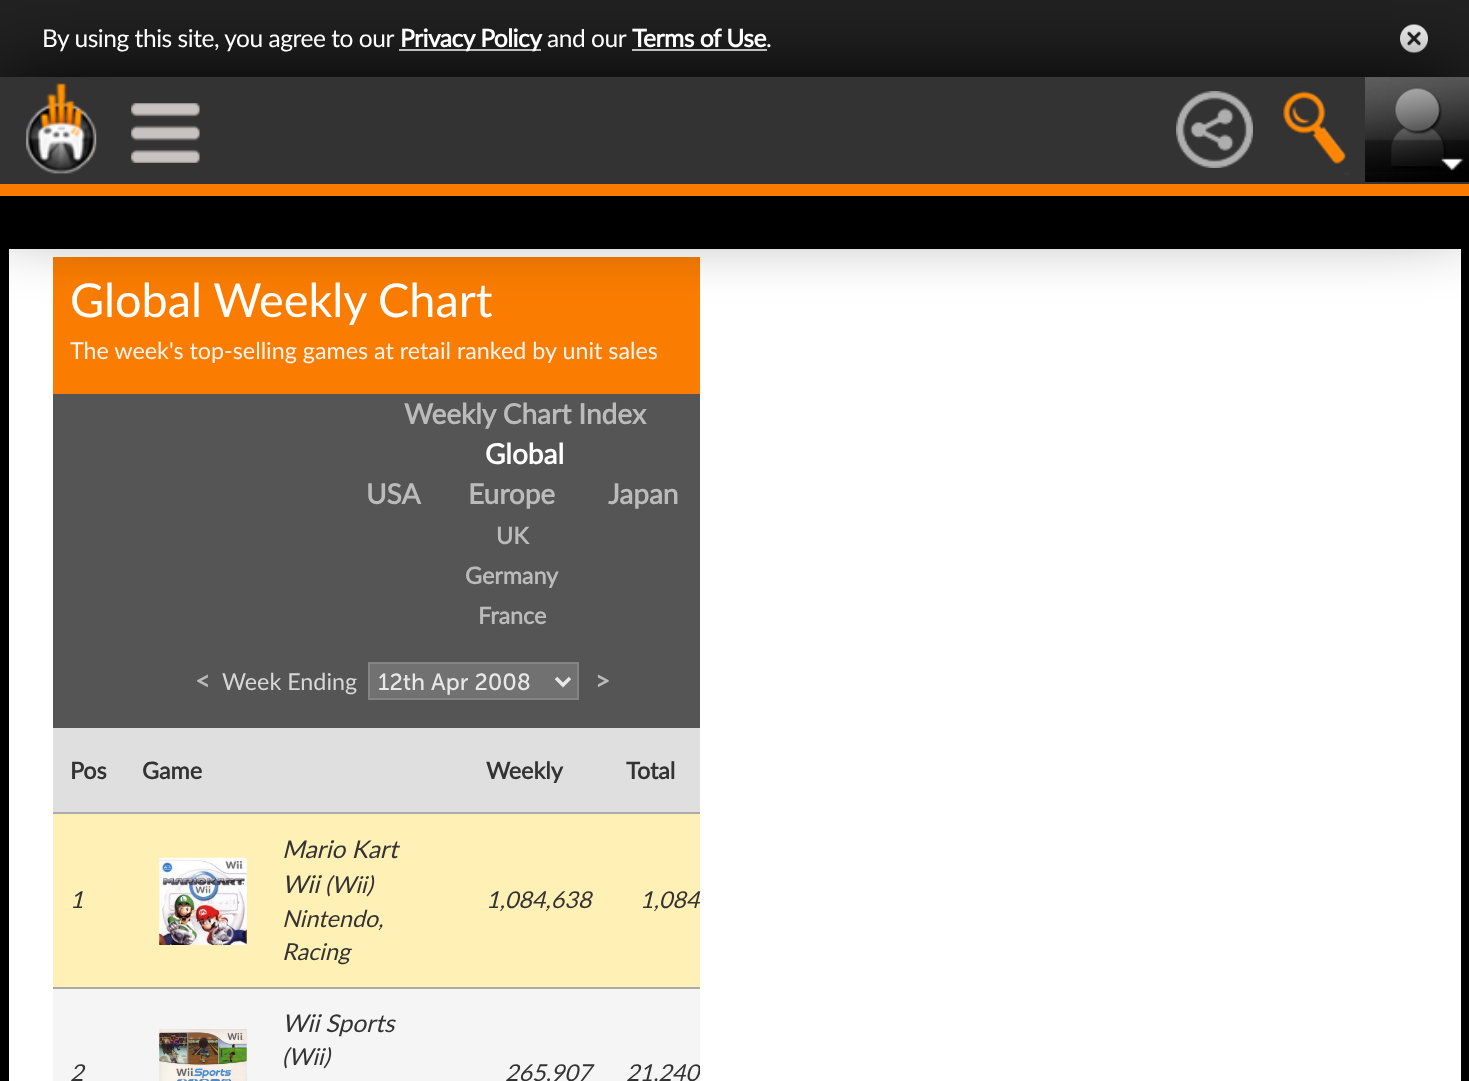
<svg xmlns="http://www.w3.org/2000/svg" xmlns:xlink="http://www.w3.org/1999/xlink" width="1469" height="1081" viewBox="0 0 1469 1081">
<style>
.cls-1{font:24.5px Lato;letter-spacing:-0.45px;fill:#ffffff}
.cls-2{font:bold 24.5px Lato;letter-spacing:-0.45px;fill:#ffffff}
.cls-3{font:46.75px Lato;fill:#ffffff}
.cls-4{font:23.3px Lato;fill:#f5f5f5}
.cls-5{font:bold 28px Lato;fill:#bbbbbb}
.cls-6{font:bold 28px Lato;fill:#ffffff}
.cls-7{font:bold 23.3px Lato;fill:#bbbbbb}
.cls-8{font:bold 26px Lato;fill:#bbbbbb}
.cls-9{font:23.3px Lato;fill:#d8d8d8}
.cls-10{font:23.3px Museo Sans;fill:#e8e8e8}
.cls-11{font:bold 23.3px Lato;fill:#333333}
.cls-12{font:italic 23.3px Lato;fill:#333333}
.cls-13{font:italic 24.5px Lato;fill:#333333}
</style>
<defs>
<clipPath id="clip1"><rect x="53" y="257" width="647" height="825"/></clipPath>
</defs>
<rect width="100%" height="100%" fill="#000000"/>
<rect fill="#222222" x="0" y="0" width="1469" height="77"/>
<rect fill="#ffffff" x="399" y="49" width="142" height="2"/>
<rect fill="#ffffff" x="632" y="49" width="135" height="2"/>
<image xlink:href="image6.png" x="1400" y="24" width="28" height="29"/>
<rect fill="#ffffff" x="9" y="249" width="1452" height="832"/>
<rect fill="#fa7d01" x="53" y="257" width="647" height="137"/>
<rect fill="#000000" filter="blur(44px)" x="0" y="79" width="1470" height="119"/>
<rect fill="#333333" x="0" y="77" width="1469" height="107"/>
<image xlink:href="image0.png" x="26" y="83" width="71" height="91"/>
<image xlink:href="image1.png" x="131" y="103" width="69" height="60"/>
<image xlink:href="image2.png" x="1176" y="91" width="77" height="77"/>
<image xlink:href="image3.png" x="1283" y="81" width="67" height="94"/>
<image xlink:href="image4.png" x="1365" y="77" width="104" height="105"/>
<image xlink:href="image5.png" x="1365" y="139" width="104" height="33"/>
<rect fill="#f97b00" x="0" y="184" width="1469" height="12"/>
<rect fill="#555555" x="53" y="394" width="647" height="334"/>
<rect fill="#717171" stroke="#848484" stroke-width="2" x="369" y="663" width="209" height="36"/>
<path fill="none" stroke="#e8e8e8" stroke-width="3.5" d="M556 678L563 685L570 678"/>
<rect fill="#dfdfdf" x="53" y="728" width="647" height="84"/>
<rect fill="#fff0b6" x="53" y="814" width="647" height="173"/>
<image xlink:href="image7.png" x="159" y="857" width="88" height="88"/>
<rect fill="#aaaaaa" x="53" y="812" width="647" height="2"/>
<rect fill="#f5f5f5" x="53" y="989" width="647" height="92"/>
<image xlink:href="image8.png" x="159" y="1029" width="88" height="52"/>
<rect fill="#aaaaaa" x="53" y="987" width="647" height="2"/>
<text class="cls-1" x="42" y="47">By using this site, you agree to our</text>
<text class="cls-2" x="400" y="47">Privacy Policy</text>
<text class="cls-1" x="547" y="47">and our</text>
<text class="cls-2" x="632" y="47">Terms of Use</text>
<text class="cls-1" x="766" y="47">.</text>
<text class="cls-3" x="70" y="317">Global Weekly Chart</text>
<text class="cls-4" x="70" y="359">The week's top-selling games at retail ranked by unit sales</text>
<text class="cls-5" x="404" y="424">Weekly Chart Index</text>
<text class="cls-6" x="485" y="464">Global</text>
<text class="cls-5" x="366" y="504">USA</text>
<text class="cls-5" x="468" y="504">Europe</text>
<text class="cls-7" x="496" y="544">UK</text>
<text class="cls-7" x="465" y="584">Germany</text>
<text class="cls-7" x="478" y="624">France</text>
<text class="cls-5" x="608" y="504">Japan</text>
<text class="cls-8" x="195" y="690">&lt;</text>
<text class="cls-9" x="222" y="690">Week Ending</text>
<text class="cls-10" x="378" y="690">12th Apr 2008</text>
<text class="cls-8" x="595" y="690">&gt;</text>
<text class="cls-11" x="70" y="779">Pos</text>
<text class="cls-11" x="142" y="779">Game</text>
<text class="cls-11" x="486" y="779">Weekly</text>
<text class="cls-11" x="626" y="779">Total</text>
<text class="cls-12" x="70" y="908">1</text>
<text class="cls-13"><tspan x="282" y="858">Mario Kart</tspan><tspan x="282" y="893">Wii</tspan></text>
<text class="cls-12" x="325" y="893">(Wii)</text>
<text class="cls-12"><tspan x="282" y="927">Nintendo,</tspan><tspan x="282" y="960">Racing</tspan></text>
<text class="cls-12" x="486" y="908">1,084,638</text>
<text class="cls-12" x="640" y="908">1,084</text>
<text class="cls-13" x="282" y="1032">Wii Sports</text>
<text class="cls-12" x="282" y="1065">(Wii)</text>
<text class="cls-12" x="70" y="1081">2</text>
<text class="cls-12" x="505" y="1081">265,907</text>
<g clip-path="url(#clip1)">
<text class="cls-12" x="626" y="1081">21,240</text>
</g>
</svg>
